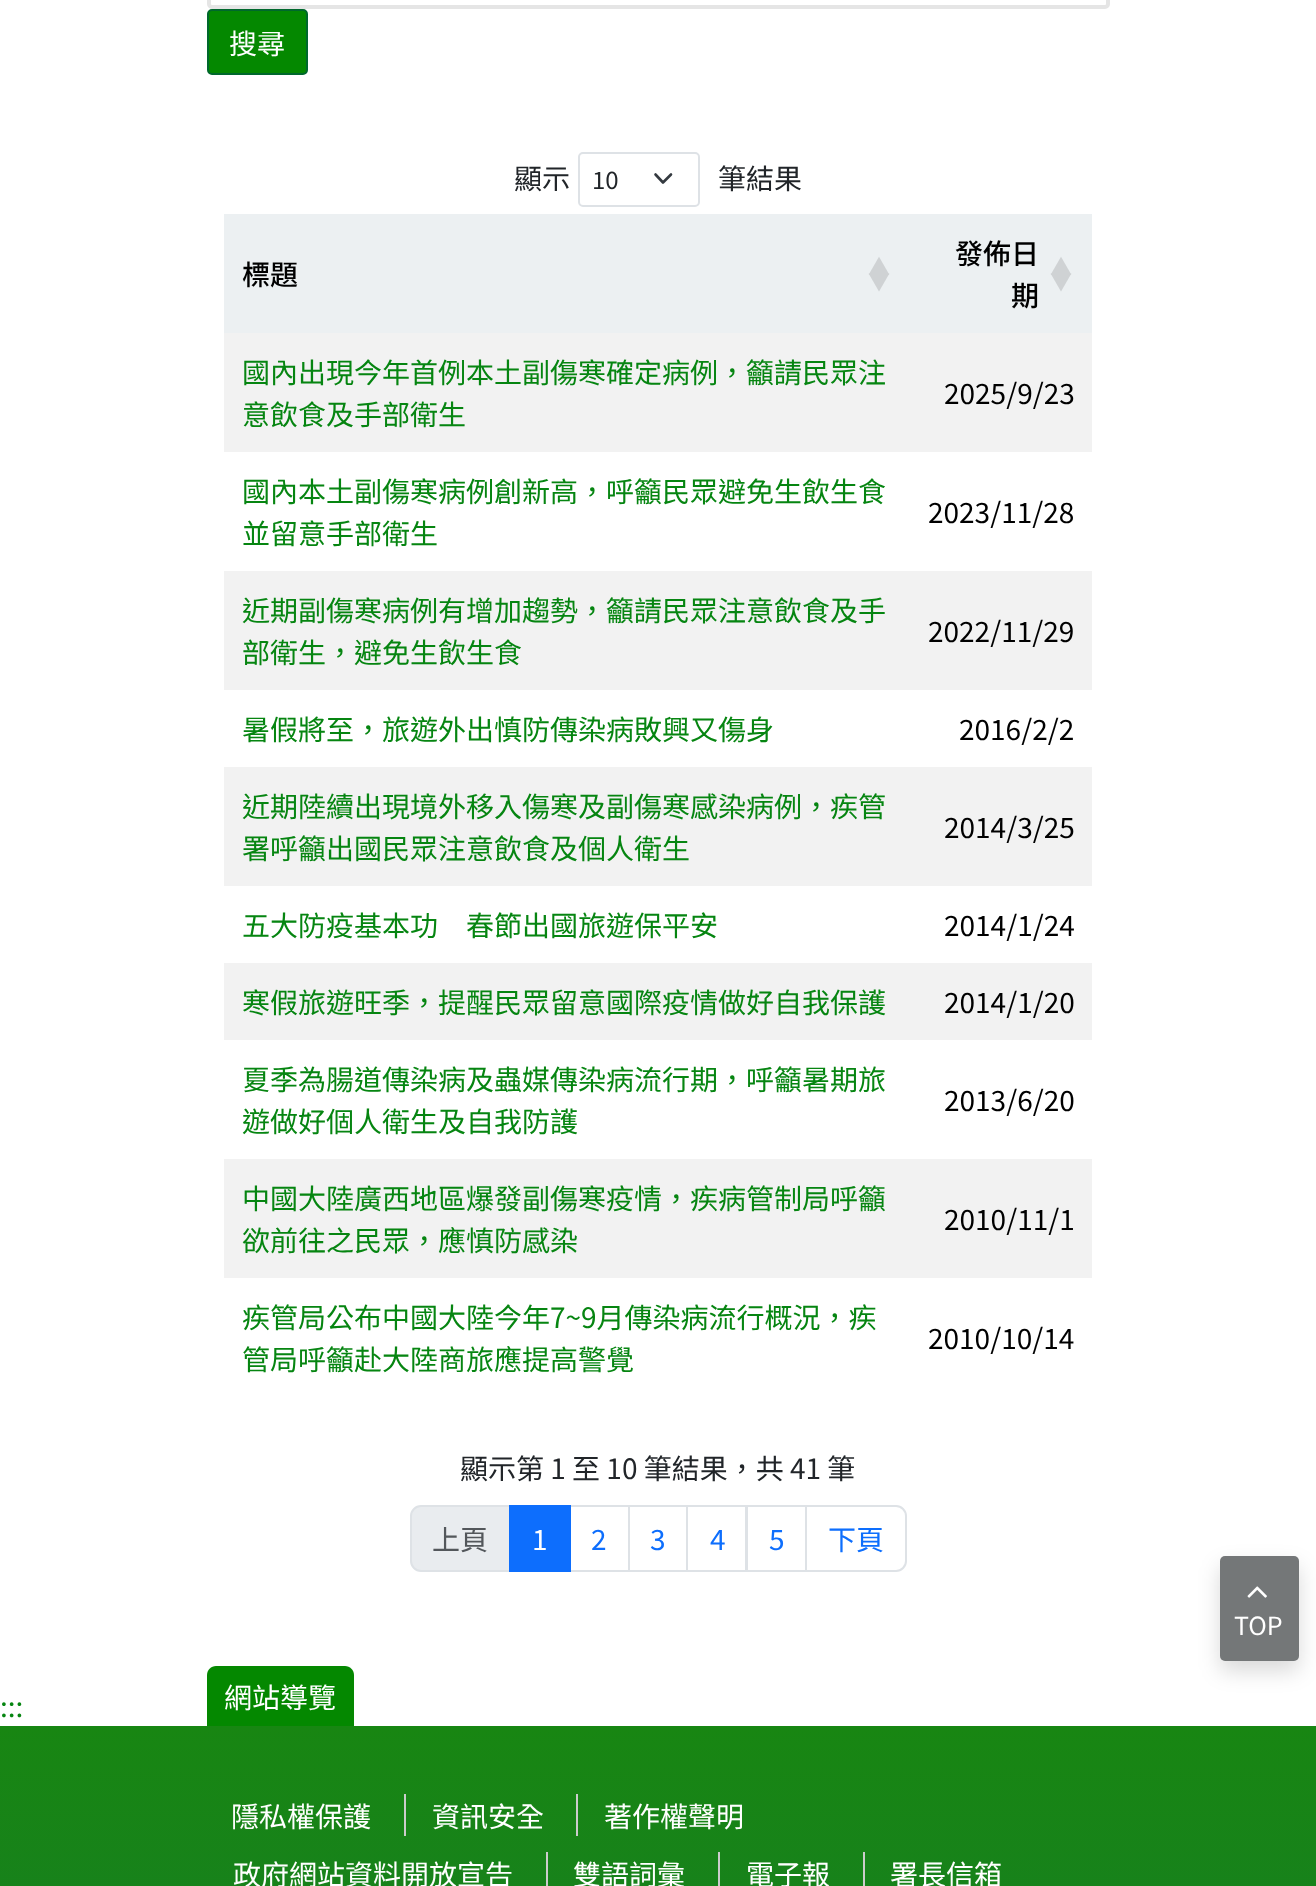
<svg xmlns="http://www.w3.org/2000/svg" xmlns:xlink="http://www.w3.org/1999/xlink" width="1316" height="1886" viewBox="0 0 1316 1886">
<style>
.cls-1{font:28px Noto Sans TC;fill:#ffffff}
.cls-2{font:28px Noto Sans TC;fill:#212529}
.cls-3{font:24px Noto Sans TC;fill:#212529}
.cls-4{font:500 28px Noto Sans TC;fill:#000000}
.cls-5{font:500 22px Noto Sans TC;fill:#cfd2d4}
.cls-6{font:28px Noto Sans TC;fill:#068511}
.cls-7{font:28px Noto Sans TC;fill:#000000}
.cls-8{font:28px Noto Sans TC;fill:#53575b}
.cls-9{font:28px Noto Sans TC;fill:#0d6efd}
.cls-10{font:25px Noto Sans TC;fill:#ffffff}
</style>
<defs>
<linearGradient id="g1" gradientUnits="userSpaceOnUse" x1="658" y1="1726" x2="658" y2="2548"><stop offset="0" stop-color="#188612"/><stop offset="1" stop-color="#14723e"/></linearGradient>
</defs>
<rect width="100%" height="100%" fill="#ffffff"/>
<rect fill="none" stroke="#e5e5e5" stroke-width="4" x="209" y="-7" width="899" height="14" rx="3"/>
<rect fill="#048800" stroke="#00682d" stroke-width="2" x="208" y="10" width="99" height="64" rx="4"/>
<path fill="none" stroke="#343a40" stroke-width="2.6" stroke-linecap="round" stroke-linejoin="round" d="M655.5 174.5L663 182.5L671 174.5"/>
<rect fill="none" stroke="#dee2e6" stroke-width="2" x="579" y="153" width="120" height="53" rx="4"/>
<rect fill="#ecf0f2" x="224" y="214" width="868" height="119"/>
<rect fill="#f2f2f2" x="224" y="333" width="868" height="119"/>
<rect fill="#f2f2f2" x="224" y="571" width="868" height="119"/>
<rect fill="#f2f2f2" x="224" y="767" width="868" height="119"/>
<rect fill="#f2f2f2" x="224" y="963" width="868" height="77"/>
<rect fill="#f2f2f2" x="224" y="1159" width="868" height="119"/>
<path fill="#e9ecef" stroke="#dee2e6" stroke-width="2" d="M421 1506H510V1571H421C415.5 1571 411 1566.5 411 1561V1516C411 1510.5 415.5 1506 421 1506Z"/>
<rect fill="none" stroke="#dee2e6" stroke-width="2" x="570" y="1506" width="59" height="65"/>
<rect fill="#0d6efd" x="509" y="1505" width="62" height="67"/>
<rect fill="none" stroke="#dee2e6" stroke-width="2" x="629" y="1506" width="58" height="65"/>
<rect fill="none" stroke="#dee2e6" stroke-width="2" x="687" y="1506" width="59" height="65"/>
<rect fill="none" stroke="#dee2e6" stroke-width="2" x="747" y="1506" width="59" height="65"/>
<path fill="#ffffff" stroke="#dee2e6" stroke-width="2" d="M806 1506H896C901.5 1506 906 1510.5 906 1516V1561C906 1566.5 901.5 1571 896 1571H806Z"/>
<path fill="#048800" d="M216 1666H345C350 1666 354 1670 354 1675V1726H207V1675C207 1670 211 1666 216 1666Z"/>
<rect fill="url(#g1)" x="0" y="1726" width="1316" height="160"/>
<rect fill="#cccccc" x="404" y="1794" width="2" height="42"/>
<rect fill="#cccccc" x="576" y="1794" width="2" height="42"/>
<rect fill="#cccccc" x="546" y="1852" width="2" height="34"/>
<rect fill="#cccccc" x="718" y="1852" width="2" height="34"/>
<rect fill="#cccccc" x="863" y="1852" width="2" height="34"/>
<rect fill="#000000" fill-opacity="0.15" filter="blur(10.5px)" x="1220" y="1566" width="79" height="105" rx="5"/>
<rect fill="#747778" x="1220" y="1556" width="79" height="105" rx="5"/>
<image xlink:href="image0.png" x="1247" y="1586" width="20" height="12"/>
<text class="cls-1" x="229" y="54">搜尋</text>
<text class="cls-2" x="514" y="189">顯示</text>
<text class="cls-3" x="592" y="189">10</text>
<text class="cls-2" x="718" y="189">筆結果</text>
<text class="cls-4" x="242" y="285">標題</text>
<text class="cls-5"><tspan x="868" y="275">▲</tspan><tspan x="868" y="290">▼</tspan></text>
<text class="cls-4" x="955" y="264">發佈日</text>
<text class="cls-5"><tspan x="1050" y="275">▲</tspan><tspan x="1050" y="290">▼</tspan></text>
<text class="cls-4" x="1011" y="306">期</text>
<text class="cls-6"><tspan x="242" y="383">國內出現今年首例本土副傷寒確定病例，籲請民眾注</tspan><tspan x="242" y="425">意飲食及手部衛生</tspan></text>
<text class="cls-7" x="944" y="404">2025/9/23</text>
<text class="cls-6"><tspan x="242" y="502">國內本土副傷寒病例創新高，呼籲民眾避免生飲生食</tspan><tspan x="242" y="544">並留意手部衛生</tspan></text>
<text class="cls-7" x="928" y="523">2023/11/28</text>
<text class="cls-6"><tspan x="242" y="621">近期副傷寒病例有增加趨勢，籲請民眾注意飲食及手</tspan><tspan x="242" y="663">部衛生，避免生飲生食</tspan></text>
<text class="cls-7" x="928" y="642">2022/11/29</text>
<text class="cls-6" x="242" y="740">暑假將至，旅遊外出慎防傳染病敗興又傷身</text>
<text class="cls-7" x="959" y="740">2016/2/2</text>
<text class="cls-6"><tspan x="242" y="817">近期陸續出現境外移入傷寒及副傷寒感染病例，疾管</tspan><tspan x="242" y="859">署呼籲出國民眾注意飲食及個人衛生</tspan></text>
<text class="cls-7" x="944" y="838">2014/3/25</text>
<text class="cls-6" x="242" y="936">五大防疫基本功　春節出國旅遊保平安</text>
<text class="cls-7" x="944" y="936">2014/1/24</text>
<text class="cls-6" x="242" y="1013">寒假旅遊旺季，提醒民眾留意國際疫情做好自我保護</text>
<text class="cls-7" x="944" y="1013">2014/1/20</text>
<text class="cls-6"><tspan x="242" y="1090">夏季為腸道傳染病及蟲媒傳染病流行期，呼籲暑期旅</tspan><tspan x="242" y="1132">遊做好個人衛生及自我防護</tspan></text>
<text class="cls-7" x="944" y="1111">2013/6/20</text>
<text class="cls-6"><tspan x="242" y="1209">中國大陸廣西地區爆發副傷寒疫情，疾病管制局呼籲</tspan><tspan x="242" y="1251">欲前往之民眾，應慎防感染</tspan></text>
<text class="cls-7" x="944" y="1230">2010/11/1</text>
<text class="cls-6"><tspan x="242" y="1328">疾管局公布中國大陸今年7~9月傳染病流行概況，疾</tspan><tspan x="242" y="1370">管局呼籲赴大陸商旅應提高警覺</tspan></text>
<text class="cls-7" x="928" y="1349">2010/10/14</text>
<text class="cls-2" x="460" y="1479">顯示第 1 至 10 筆結果，共 41 筆</text>
<text class="cls-8" x="432" y="1550">上頁</text>
<text class="cls-1" x="532" y="1550">1</text>
<text class="cls-9" x="591" y="1550">2</text>
<text class="cls-9" x="650" y="1550">3</text>
<text class="cls-9" x="710" y="1550">4</text>
<text class="cls-9" x="769" y="1550">5</text>
<text class="cls-9" x="828" y="1550">下頁</text>
<text class="cls-6" x="0" y="1717">:::</text>
<text class="cls-1" x="224" y="1708">網站導覽</text>
<text class="cls-1" x="231" y="1827">隱私權保護</text>
<text class="cls-1" x="432" y="1827">資訊安全</text>
<text class="cls-1" x="604" y="1827">著作權聲明</text>
<text class="cls-1" x="233" y="1885">政府網站資料開放宣告</text>
<text class="cls-1" x="573" y="1885">雙語詞彙</text>
<text class="cls-1" x="746" y="1885">電子報</text>
<text class="cls-1" x="890" y="1885">署長信箱</text>
<text class="cls-10" x="1234" y="1635">TOP</text>
</svg>
